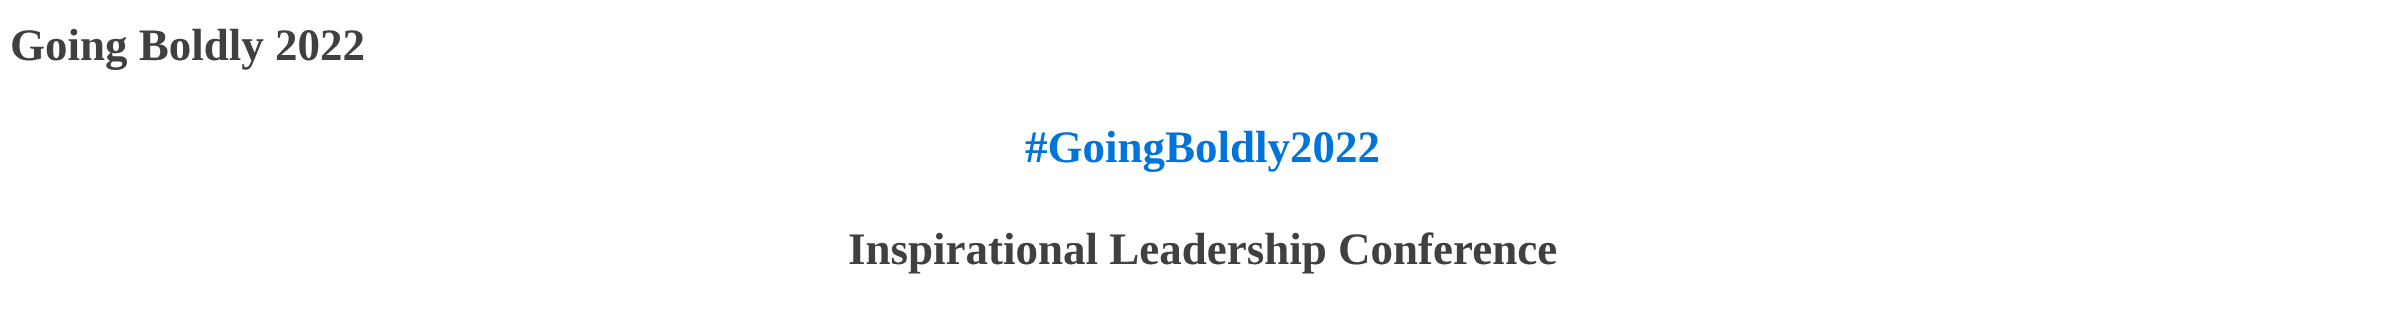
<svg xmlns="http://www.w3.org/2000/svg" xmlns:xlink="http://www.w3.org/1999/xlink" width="2405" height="331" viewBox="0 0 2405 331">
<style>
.cls-1{font:bold 45px Liberation Serif;fill:#404040}
.cls-2{font:bold 45px Liberation Serif;fill:#0074db}
</style>
<rect width="100%" height="100%" fill="#ffffff"/>
<text class="cls-1" x="10" y="60">Going Boldly 2022</text>
<text class="cls-2" x="1025" y="162">#GoingBoldly2022</text>
<text class="cls-1" x="848" y="264">Inspirational Leadership Conference</text>
</svg>
